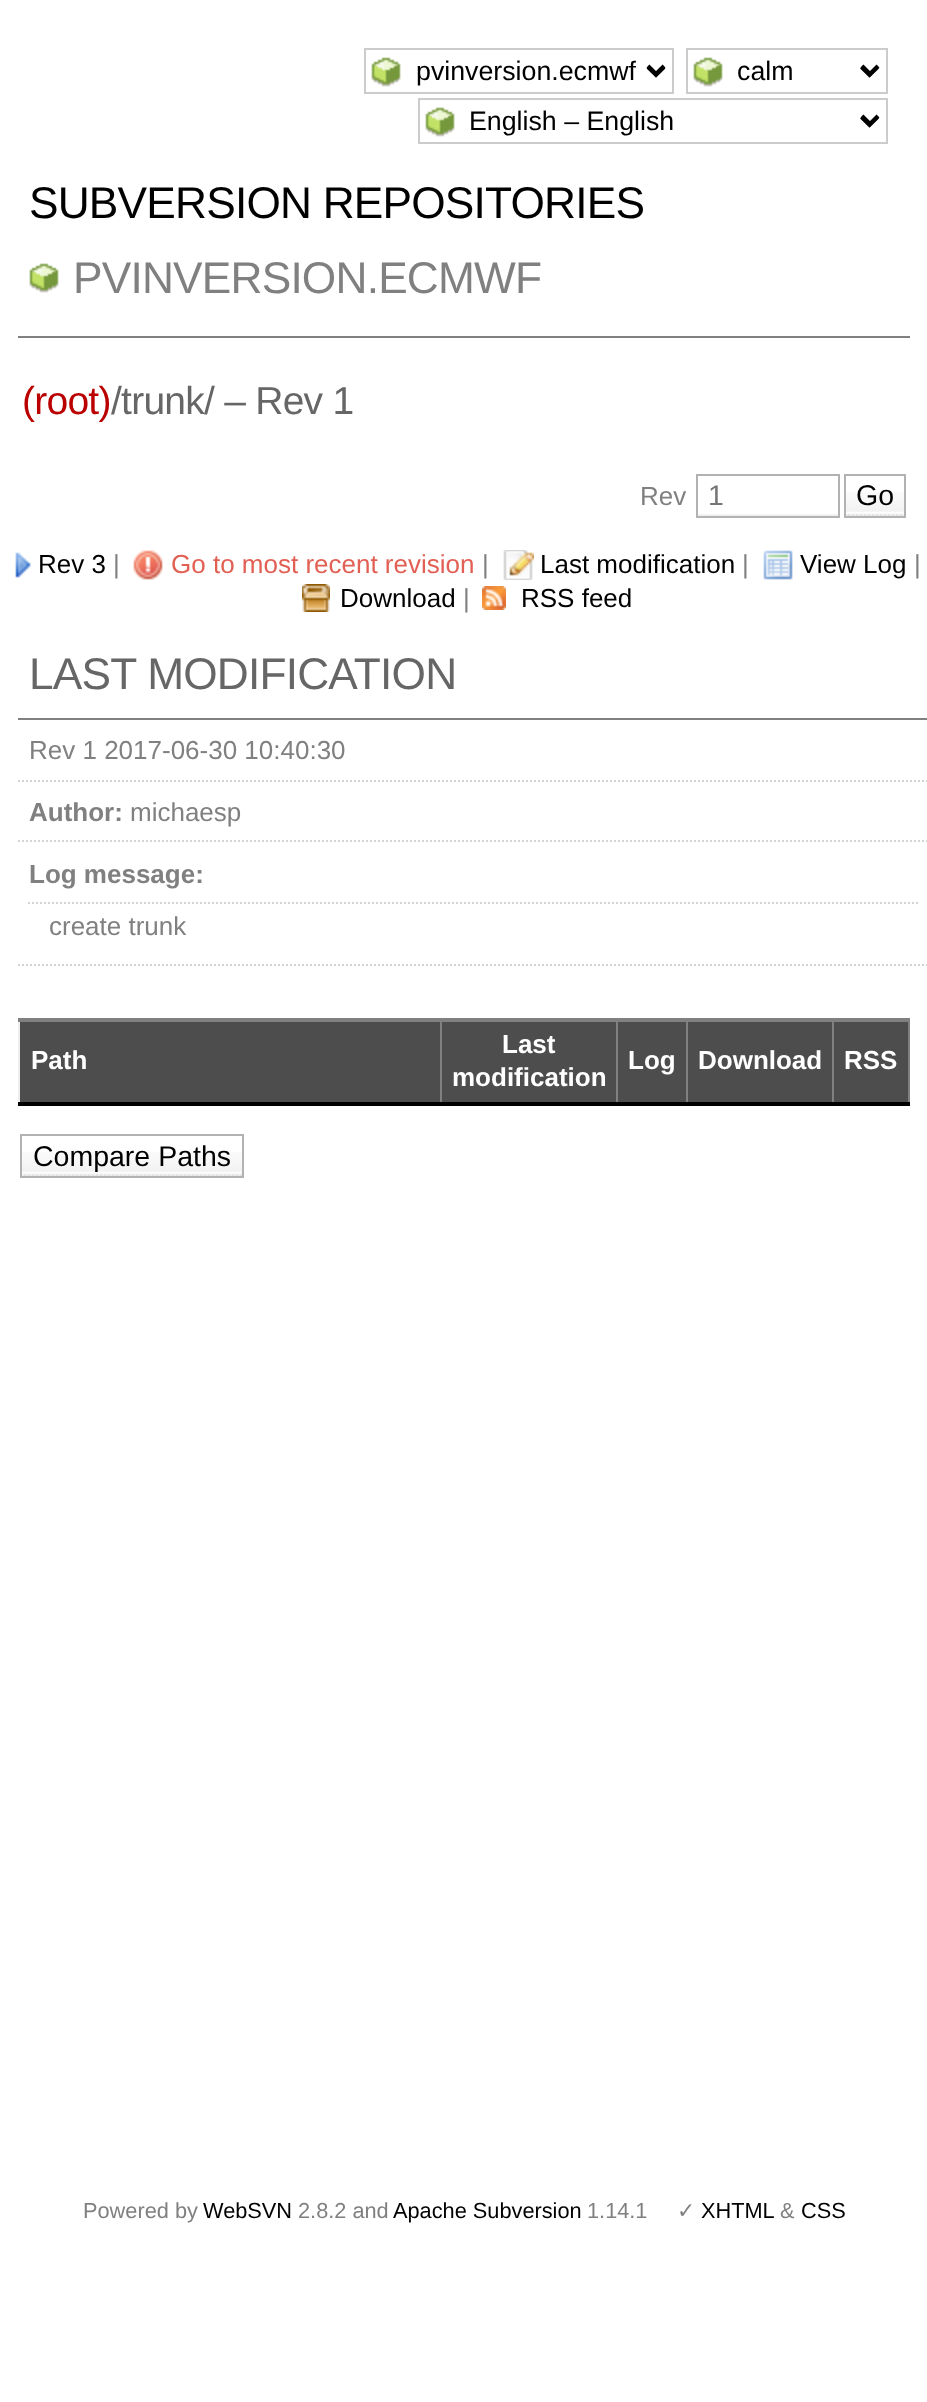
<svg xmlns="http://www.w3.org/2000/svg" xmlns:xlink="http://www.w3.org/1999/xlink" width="927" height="2402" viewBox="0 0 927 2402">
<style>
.cls-1{font:26.75px Liberation Sans;fill:#000000}
.cls-2{font:44.25px Liberation Sans;letter-spacing:-0.8px;fill:#000000}
.cls-3{font:44.25px Liberation Sans;letter-spacing:-0.8px;fill:#808080}
.cls-4{font:39px Liberation Sans;letter-spacing:-0.75px;fill:#bb0000}
.cls-5{font:39px Liberation Sans;letter-spacing:-0.75px;fill:#666666}
.cls-6{font:26px Liberation Sans;fill:#808080}
.cls-7{font:28.5px Liberation Sans;fill:#757575}
.cls-8{font:28.5px Liberation Sans;fill:#000000}
.cls-9{font:26px Liberation Sans;fill:#000000}
.cls-10{font:26px Liberation Sans;fill:#e25f53}
.cls-11{font:44.25px Liberation Sans;letter-spacing:-0.8px;fill:#666666}
.cls-12{font:bold 26px Liberation Sans;fill:#808080}
.cls-13{font:bold 26px Liberation Sans;fill:#ffffff}
.cls-14{font:21.75px Liberation Sans;fill:#808080}
.cls-15{font:21.75px Liberation Sans;fill:#000000}
.cls-16{font:21.75px DejaVu Sans;fill:#808080}
</style>
<defs>
<clipPath id="clip1"><rect x="18" y="382" width="892" height="40"/></clipPath>
</defs>
<rect width="100%" height="100%" fill="#ffffff"/>
<image xlink:href="image0.png" x="371" y="57" width="295" height="30"/>
<rect fill="none" stroke="#cccccc" stroke-width="2" x="365" y="49" width="308" height="44"/>
<path fill="none" stroke="#000000" stroke-width="4" d="M648 67L656 75L664 67"/>
<image xlink:href="image1.png" x="693" y="57" width="187" height="30"/>
<rect fill="none" stroke="#cccccc" stroke-width="2" x="687" y="49" width="200" height="44"/>
<path fill="none" stroke="#000000" stroke-width="4" d="M861.5 67L869.5 75L877.5 67"/>
<image xlink:href="image2.png" x="425" y="107" width="455" height="30"/>
<rect fill="none" stroke="#cccccc" stroke-width="2" x="419" y="99" width="468" height="44"/>
<path fill="none" stroke="#000000" stroke-width="4" d="M861.5 117L869.5 125L877.5 117"/>
<rect fill="#808080" x="18" y="336" width="892" height="2"/>
<image xlink:href="image3.png" x="29" y="263" width="30" height="30"/>
<image xlink:href="image4.png" x="698" y="514" width="140" height="2"/>
<rect fill="none" stroke="#b2b2b2" stroke-width="2" x="697" y="475" width="142" height="42"/>
<image xlink:href="image5.png" x="846" y="492" width="58" height="24"/>
<rect fill="none" stroke="#b2b2b2" stroke-width="2" x="845" y="475" width="60" height="42"/>
<image xlink:href="image6.png" x="15" y="552" width="16" height="26"/>
<image xlink:href="image7.png" x="133" y="550" width="30" height="30"/>
<image xlink:href="image8.png" x="503" y="550" width="31" height="30"/>
<image xlink:href="image9.png" x="763" y="550" width="30" height="30"/>
<image xlink:href="image10.png" x="302" y="584" width="28" height="28"/>
<image xlink:href="image11.png" x="482" y="586" width="24" height="24"/>
<rect fill="#808080" x="18" y="718" width="909" height="2"/>
<path fill="none" stroke="#d3d3d3" stroke-width="2" stroke-dasharray="2 2" d="M18 781H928"/>
<path fill="none" stroke="#d3d3d3" stroke-width="2" stroke-dasharray="2 2" d="M18 841H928"/>
<path fill="none" stroke="#d3d3d3" stroke-width="2" stroke-dasharray="2 2" d="M18 965H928"/>
<path fill="none" stroke="#d3d3d3" stroke-width="2" stroke-dasharray="2 2" d="M28 903H918"/>
<rect fill="#4d4d4d" x="20" y="1022" width="888" height="80"/>
<rect fill="#808080" x="440" y="1020" width="2" height="86"/>
<rect fill="#eeeeee" x="18" y="1020" width="2" height="86"/>
<rect fill="#808080" x="616" y="1020" width="2" height="86"/>
<rect fill="#808080" x="686" y="1020" width="2" height="86"/>
<rect fill="#808080" x="832" y="1020" width="2" height="86"/>
<rect fill="#808080" x="908" y="1020" width="2" height="86"/>
<rect fill="#808080" x="18" y="1018" width="892" height="4"/>
<rect fill="#000000" x="18" y="1102" width="892" height="4"/>
<image xlink:href="image12.png" x="22" y="1152" width="220" height="24"/>
<rect fill="none" stroke="#b2b2b2" stroke-width="2" x="21" y="1135" width="222" height="42"/>
<text class="cls-1" x="416" y="80">pvinversion.ecmwf</text>
<text class="cls-1" x="737" y="80">calm</text>
<text class="cls-1" x="469" y="130">English – English</text>
<text class="cls-2" x="29" y="218">SUBVERSION REPOSITORIES</text>
<text class="cls-3" x="73" y="293">PVINVERSION.ECMWF</text>
<g clip-path="url(#clip1)">
<text class="cls-4" x="22" y="414">(root)</text>
</g>
<text class="cls-5" x="111" y="414">/trunk/ – Rev 1</text>
<text class="cls-6" x="640" y="505">Rev</text>
<text class="cls-7" x="708" y="505">1</text>
<text class="cls-8" x="856" y="505">Go</text>
<text class="cls-9" x="38" y="573">Rev 3</text>
<text class="cls-6" x="113" y="573">|</text>
<text class="cls-10" x="171" y="573">Go to most recent revision</text>
<text class="cls-6" x="482" y="573">|</text>
<text class="cls-9" x="540" y="573">Last modification</text>
<text class="cls-6" x="742" y="573">|</text>
<text class="cls-9" x="800" y="573">View Log</text>
<text class="cls-6" x="914" y="573">|</text>
<text class="cls-9" x="340" y="607">Download</text>
<text class="cls-6" x="463" y="607">|</text>
<text class="cls-9" x="521" y="607">RSS feed</text>
<text class="cls-11" x="29" y="689">LAST MODIFICATION</text>
<text class="cls-6" x="29" y="759">Rev 1 2017-06-30 10:40:30</text>
<text class="cls-12" x="29" y="821">Author:</text>
<text class="cls-6" x="130" y="821">michaesp</text>
<text class="cls-12" x="29" y="883">Log message:</text>
<text class="cls-6" x="49" y="935">create trunk</text>
<text class="cls-13" x="31" y="1069">Path</text>
<text class="cls-13" x="502" y="1053">Last</text>
<text class="cls-13" x="452" y="1086">modification</text>
<text class="cls-13" x="628" y="1069">Log</text>
<text class="cls-13" x="698" y="1069">Download</text>
<text class="cls-13" x="844" y="1069">RSS</text>
<text class="cls-8" x="33" y="1166">Compare Paths</text>
<text class="cls-14" x="83" y="2218">Powered by</text>
<text class="cls-15" x="203" y="2218">WebSVN</text>
<text class="cls-14" x="298" y="2218">2.8.2 and</text>
<text class="cls-15" x="393" y="2218">Apache Subversion</text>
<text class="cls-14" x="587" y="2218">1.14.1</text>
<text class="cls-16" x="677" y="2218">✓</text>
<text class="cls-15" x="701" y="2218">XHTML</text>
<text class="cls-14" x="780" y="2218">&amp;</text>
<text class="cls-15" x="801" y="2218">CSS</text>
</svg>
